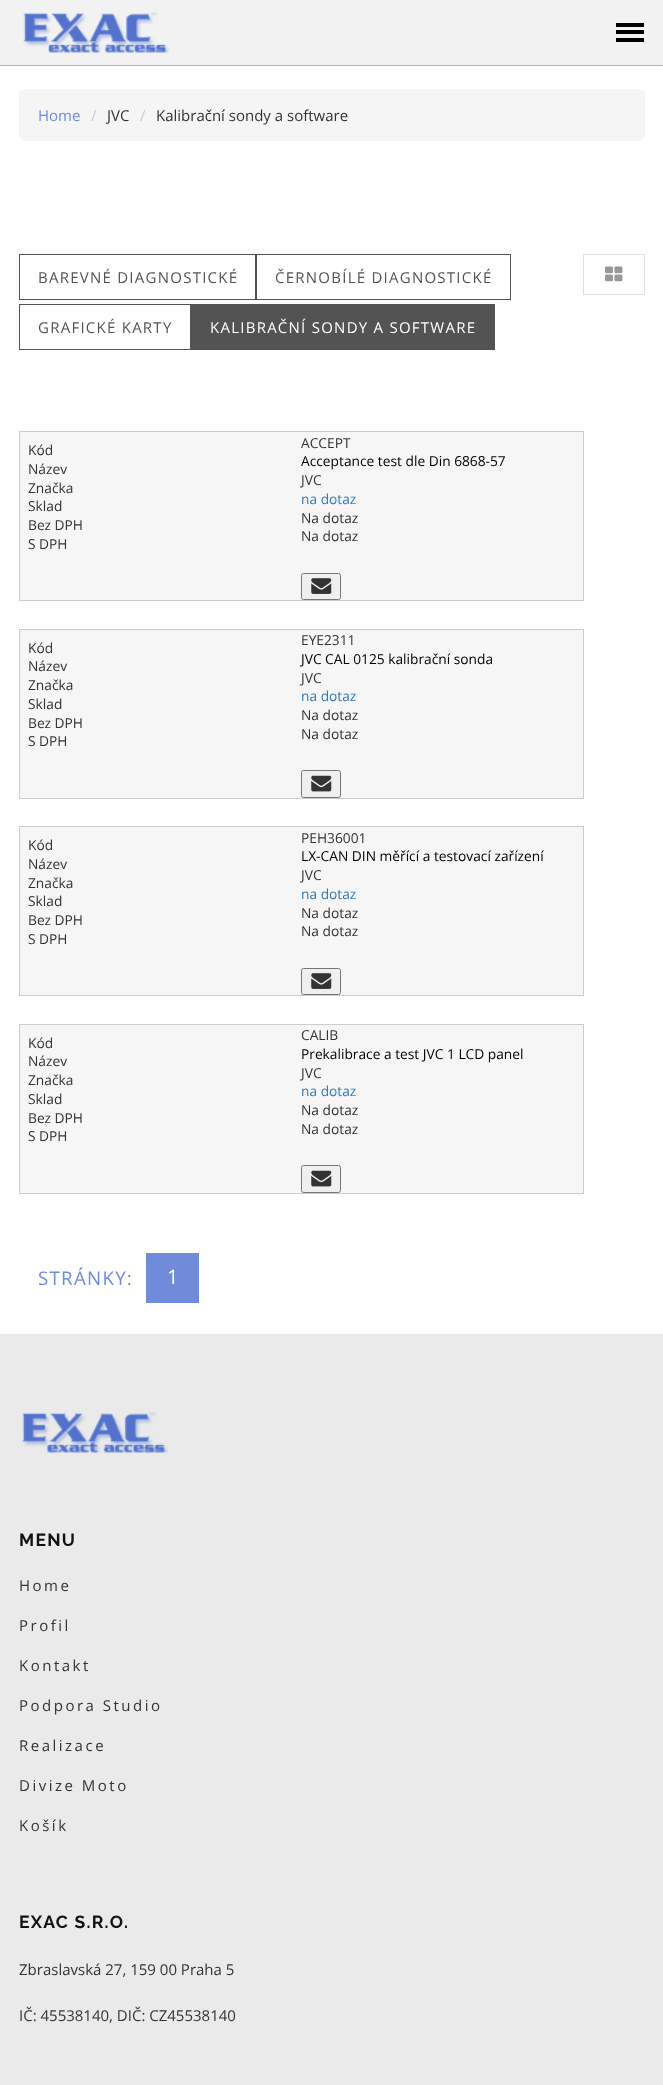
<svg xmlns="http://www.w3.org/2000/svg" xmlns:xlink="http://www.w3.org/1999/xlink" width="663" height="2085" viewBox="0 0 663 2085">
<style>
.cls-1{font:15px Open Sans;fill:#6f8bd9}
.cls-2{font:15px Open Sans;fill:#cccccc}
.cls-3{font:15px Open Sans;fill:#333333}
.cls-4{font:15px Open Sans;letter-spacing:1.25px;fill:#545353}
.cls-5{font:15px Open Sans;letter-spacing:1.25px;fill:#ffffff}
.cls-6{font:13.75px Open Sans;fill:#333333}
.cls-7{font:13.75px Open Sans;fill:#000000}
.cls-8{font:13.75px Open Sans;fill:#337ab7}
.cls-9{font:18.75px Open Sans;letter-spacing:1.25px;fill:#6f8bd9}
.cls-10{font:20px Open Sans;fill:#ffffff}
.cls-11{font:bold 17.5px Raleway;letter-spacing:1.25px;fill:#111111}
.cls-12{font:15px Open Sans;letter-spacing:2.5px;fill:#333333}
</style>
<rect width="100%" height="100%" fill="#ffffff"/>
<rect fill="#b6b6b6" x="0" y="65" width="663" height="1"/>
<rect fill="#f2f2f2" x="0" y="0" width="663" height="65"/>
<image xlink:href="image0.png" x="23" y="12" width="147" height="41"/>
<rect fill="#000000" x="616" y="23" width="28" height="4"/>
<rect fill="#000000" x="616" y="30" width="28" height="4"/>
<rect fill="#000000" x="616" y="38" width="28" height="4"/>
<rect fill="#f5f5f5" x="19" y="89" width="626" height="52" rx="5"/>
<rect fill="none" stroke="#545353" x="19.5" y="254.5" width="236" height="45"/>
<rect fill="none" stroke="#545353" x="256.5" y="254.5" width="254" height="45"/>
<rect fill="none" stroke="#545353" x="19.5" y="304.5" width="171" height="45"/>
<rect fill="#545353" x="191" y="304" width="304" height="46"/>
<rect fill="none" stroke="#e1e1e1" x="583.5" y="254.5" width="61" height="40"/>
<image xlink:href="image1.png" x="605" y="266" width="18" height="16"/>
<rect fill="#f7f6f6" stroke="#cccccc" x="19.5" y="431.5" width="564" height="169"/>
<rect fill="#efefef" stroke="#767676" x="301.5" y="573.5" width="39" height="26" rx="2"/>
<image xlink:href="image2.png" x="311" y="578" width="21" height="16"/>
<rect fill="#f7f6f6" stroke="#cccccc" x="19.5" y="629.5" width="564" height="169"/>
<rect fill="#efefef" stroke="#767676" x="301.5" y="770.5" width="39" height="27" rx="2"/>
<image xlink:href="image3.png" x="311" y="775" width="21" height="17"/>
<rect fill="#f7f6f6" stroke="#cccccc" x="19.5" y="826.5" width="564" height="169"/>
<rect fill="#efefef" stroke="#767676" x="301.5" y="968.5" width="39" height="26" rx="2"/>
<image xlink:href="image2.png" x="311" y="973" width="21" height="16"/>
<rect fill="#f7f6f6" stroke="#cccccc" x="19.5" y="1024.5" width="564" height="169"/>
<rect fill="#efefef" stroke="#767676" x="301.5" y="1165.5" width="39" height="27" rx="2"/>
<image xlink:href="image3.png" x="311" y="1170" width="21" height="17"/>
<rect fill="#6f8bd9" x="146" y="1253" width="53" height="50"/>
<rect fill="#eaeaea" x="0" y="1334" width="663" height="751"/>
<image xlink:href="image4.png" x="22" y="1412" width="146" height="41"/>
<text class="cls-1" x="38" y="121">Home</text>
<text class="cls-2" x="91" y="121">/</text>
<text class="cls-3" x="107" y="121">JVC</text>
<text class="cls-2" x="140" y="121">/</text>
<text class="cls-3" x="156" y="121">Kalibrační sondy a software</text>
<text class="cls-4" x="38" y="283">BAREVNÉ DIAGNOSTICKÉ</text>
<text class="cls-4" x="275" y="283">ČERNOBÍLÉ DIAGNOSTICKÉ</text>
<text class="cls-4" x="38" y="333">GRAFICKÉ KARTY</text>
<text class="cls-5" x="210" y="333">KALIBRAČNÍ SONDY A SOFTWARE</text>
<text class="cls-6" x="28" y="455">Kód</text>
<text class="cls-6" x="301" y="448">ACCEPT</text>
<text class="cls-6" x="28" y="474">Název</text>
<text class="cls-7" x="301" y="466">Acceptance test dle Din 6868-57</text>
<text class="cls-6" x="28" y="493">Značka</text>
<text class="cls-6" x="301" y="485">JVC</text>
<text class="cls-6" x="28" y="511">Sklad</text>
<text class="cls-8" x="301" y="504">na dotaz</text>
<text class="cls-6" x="301" y="523">Na dotaz</text>
<text class="cls-6" x="28" y="530">Bez DPH</text>
<text class="cls-6" x="301" y="541">Na dotaz</text>
<text class="cls-6" x="28" y="549">S DPH</text>
<text class="cls-6" x="301" y="645">EYE2311</text>
<text class="cls-6"><tspan x="28" y="653">Kód</tspan><tspan x="28" y="671">Název</tspan></text>
<text class="cls-7" x="301" y="664">JVC CAL 0125 kalibrační sonda</text>
<text class="cls-6" x="28" y="690">Značka</text>
<text class="cls-6" x="301" y="683">JVC</text>
<text class="cls-8" x="301" y="701">na dotaz</text>
<text class="cls-6" x="28" y="709">Sklad</text>
<text class="cls-6" x="301" y="720">Na dotaz</text>
<text class="cls-6" x="28" y="728">Bez DPH</text>
<text class="cls-6" x="301" y="739">Na dotaz</text>
<text class="cls-6" x="28" y="746">S DPH</text>
<text class="cls-6" x="28" y="850">Kód</text>
<text class="cls-6" x="301" y="843">PEH36001</text>
<text class="cls-7" x="301" y="861">LX-CAN DIN měřící a testovací zařízení</text>
<text class="cls-6"><tspan x="28" y="869">Název</tspan><tspan x="28" y="888">Značka</tspan></text>
<text class="cls-6" x="301" y="880">JVC</text>
<text class="cls-6" x="28" y="906">Sklad</text>
<text class="cls-8" x="301" y="899">na dotaz</text>
<text class="cls-6" x="301" y="918">Na dotaz</text>
<text class="cls-6" x="28" y="925">Bez DPH</text>
<text class="cls-6" x="301" y="936">Na dotaz</text>
<text class="cls-6" x="28" y="944">S DPH</text>
<text class="cls-6" x="301" y="1040">CALIB</text>
<text class="cls-6"><tspan x="28" y="1048">Kód</tspan><tspan x="28" y="1066">Název</tspan></text>
<text class="cls-7" x="301" y="1059">Prekalibrace a test JVC 1 LCD panel</text>
<text class="cls-6" x="28" y="1085">Značka</text>
<text class="cls-6" x="301" y="1078">JVC</text>
<text class="cls-8" x="301" y="1096">na dotaz</text>
<text class="cls-6" x="28" y="1104">Sklad</text>
<text class="cls-6" x="301" y="1115">Na dotaz</text>
<text class="cls-6" x="28" y="1123">Bez DPH</text>
<text class="cls-6" x="301" y="1134">Na dotaz</text>
<text class="cls-6" x="28" y="1141">S DPH</text>
<text class="cls-9" x="38" y="1285">STRÁNKY:</text>
<text class="cls-10" x="167" y="1284">1</text>
<text class="cls-11" x="19" y="1546">MENU</text>
<text class="cls-12" x="19" y="1591">Home</text>
<text class="cls-12" x="19" y="1631">Profil</text>
<text class="cls-12" x="19" y="1671">Kontakt</text>
<text class="cls-12" x="19" y="1711">Podpora Studio</text>
<text class="cls-12" x="19" y="1751">Realizace</text>
<text class="cls-12" x="19" y="1791">Divize Moto</text>
<text class="cls-12" x="19" y="1831">Košík</text>
<text class="cls-11" x="19" y="1928">EXAC S.R.O.</text>
<text class="cls-3" x="19" y="1975">Zbraslavská 27, 159 00 Praha 5</text>
<text class="cls-3" x="19" y="2021">IČ: 45538140, DIČ: CZ45538140</text>
</svg>
